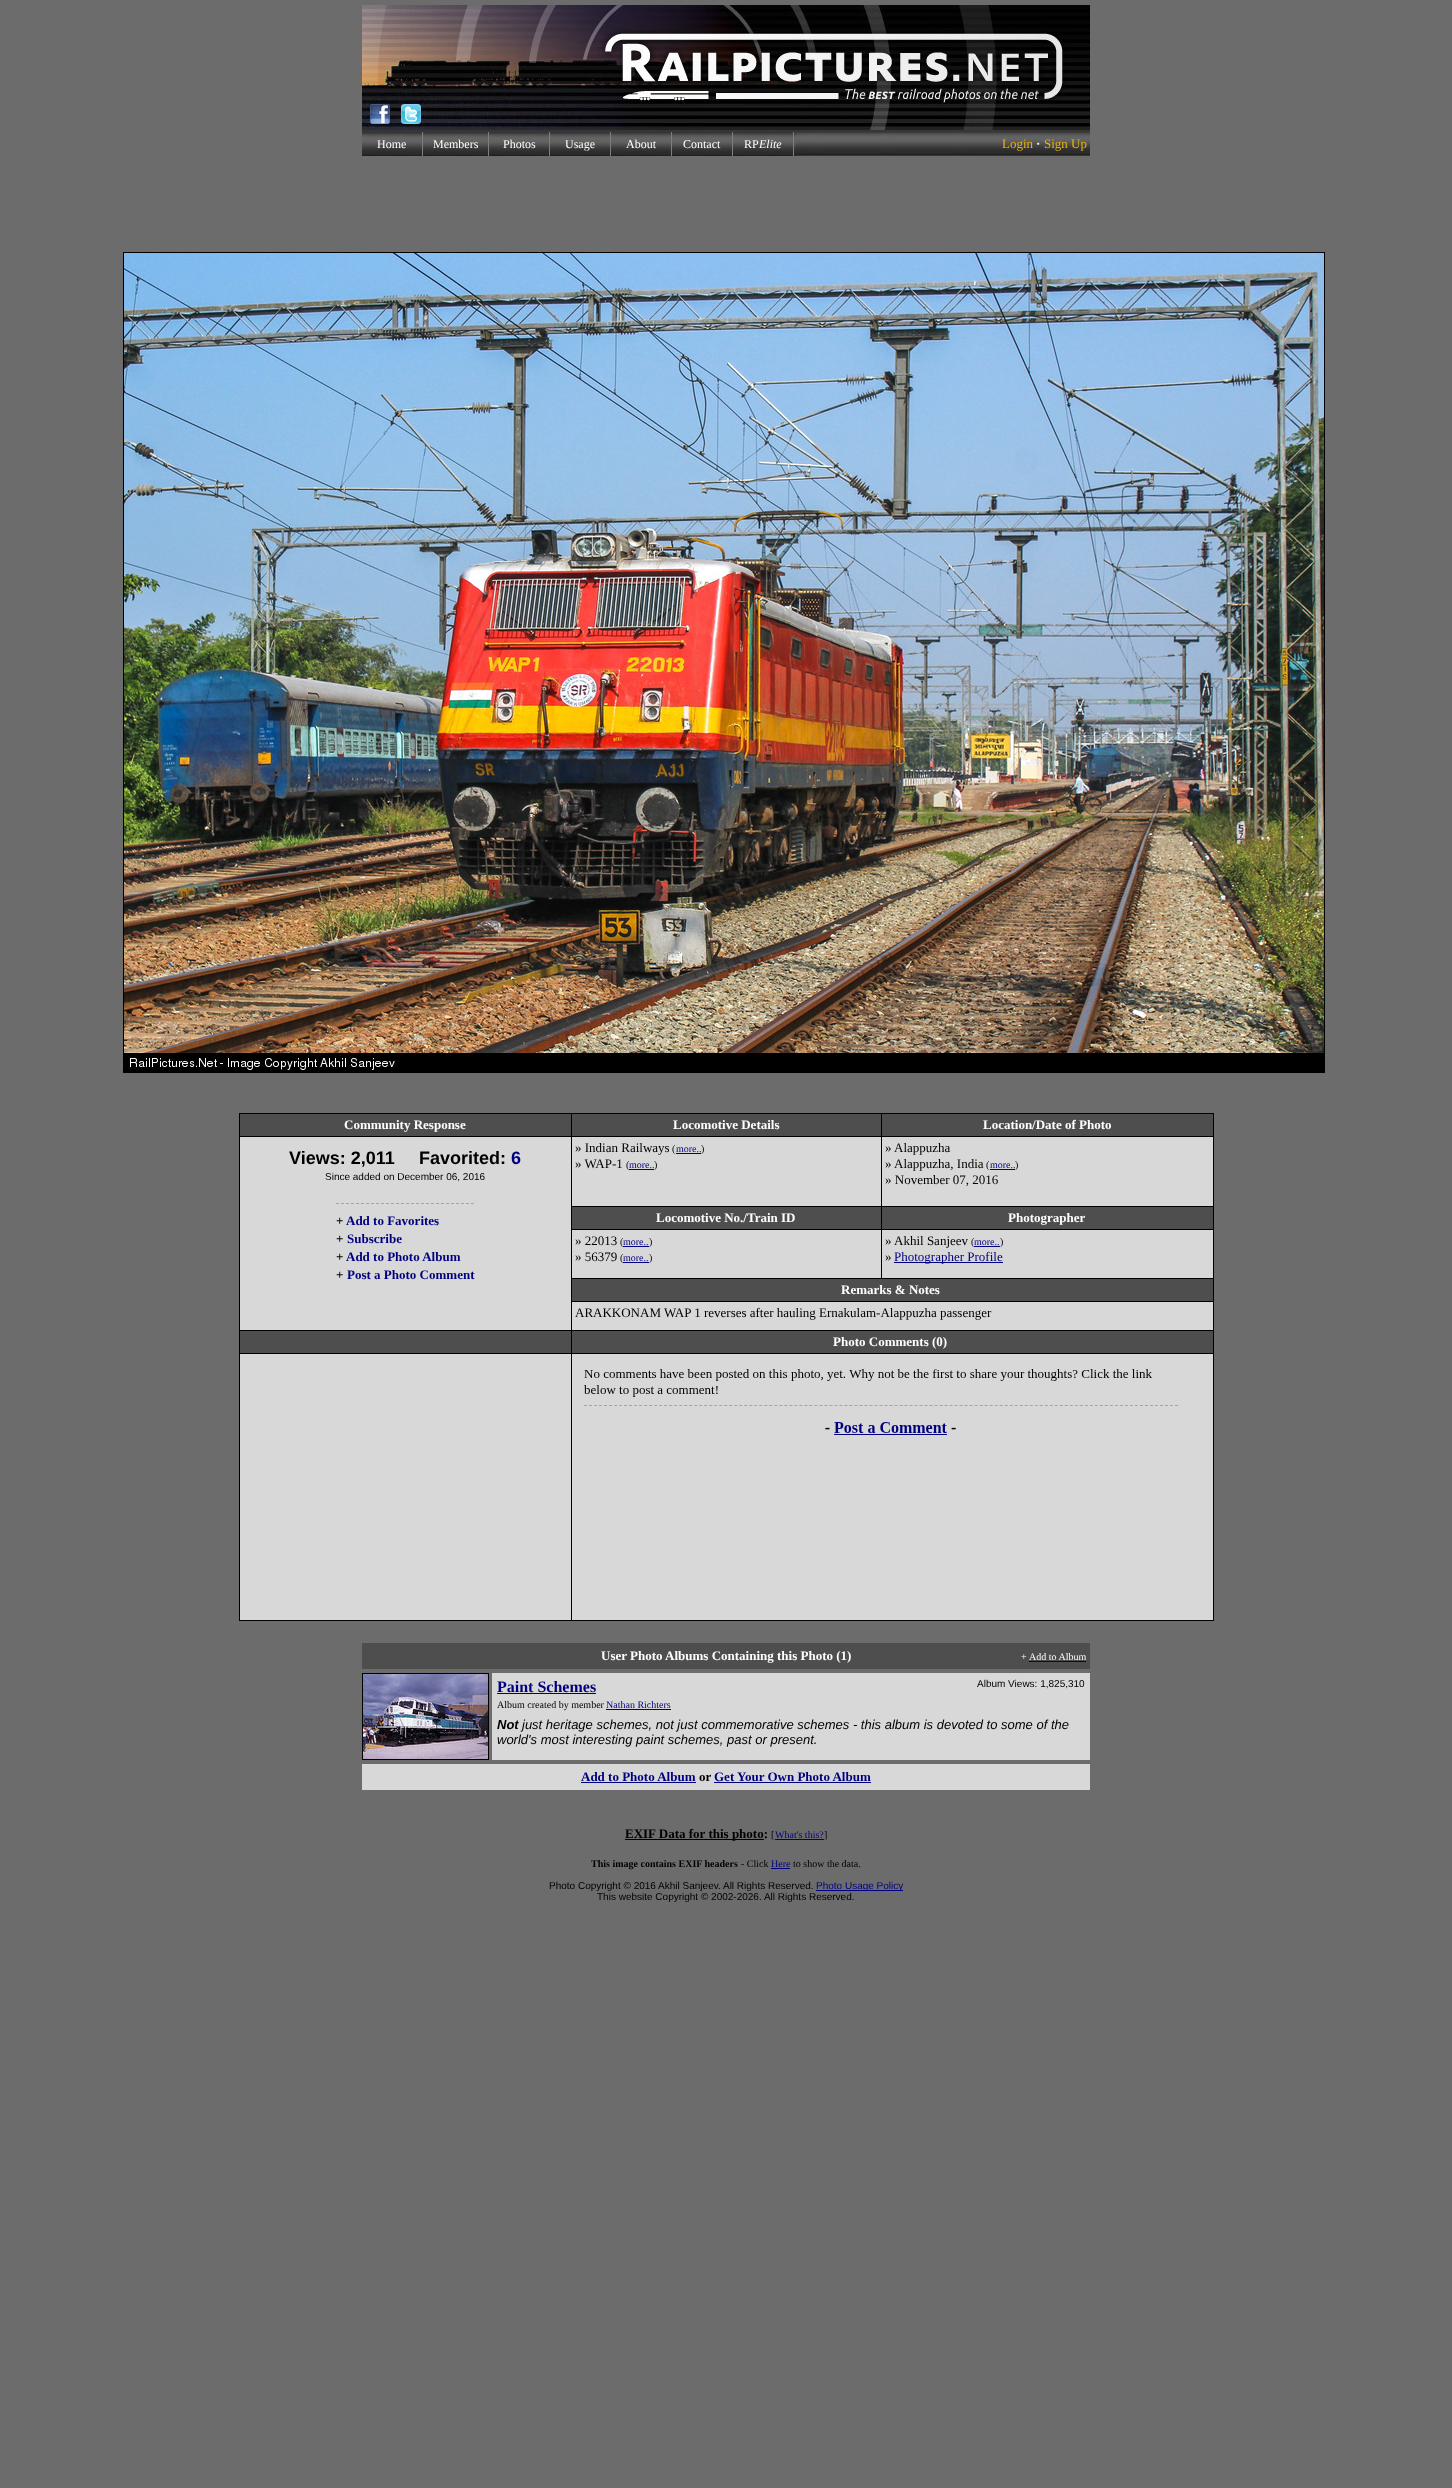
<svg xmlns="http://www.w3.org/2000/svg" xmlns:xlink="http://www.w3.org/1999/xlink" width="1452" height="2488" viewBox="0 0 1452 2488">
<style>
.cls-1{font:12px Liberation Serif;fill:#ffffff}
.cls-2{font:italic 12px Liberation Serif;fill:#ffffff}
.cls-3{font:13px Liberation Serif;fill:#ecb406}
.cls-4{font:bold 13px Liberation Serif;fill:#f3f3f3}
.cls-5{font:bold 13px Liberation Serif;fill:#ffffff}
.cls-6{font:bold 18px Liberation Sans;fill:#000000}
.cls-7{font:bold 18px Liberation Sans;fill:#000080}
.cls-8{font:10px Liberation Sans;fill:#000000}
.cls-9{font:bold 13px Liberation Serif;fill:#000000}
.cls-10{font:bold 13px Liberation Serif;fill:#000080}
.cls-11{font:13px Liberation Serif;fill:#000000}
.cls-12{font:10px Liberation Serif;fill:#000000}
.cls-13{font:10px Liberation Serif;fill:#000080}
.cls-14{font:13px Liberation Serif;fill:#000080}
.cls-15{font:10px Liberation Serif;fill:#ffffff}
.cls-16{font:bold 16px Liberation Serif;fill:#000080}
.cls-17{font:italic bold 13px Liberation Sans;fill:#000000}
.cls-18{font:italic 13px Liberation Sans;fill:#000000}
.cls-19{font:bold 10px Liberation Serif;fill:#000000}
.cls-20{font:10px Liberation Sans;fill:#000080}
</style>
<rect width="100%" height="100%" fill="#6c6c6c"/>
<image xlink:href="image8.png" x="362" y="130" width="728" height="26"/>
<rect fill="#7e7e7e" x="422" y="132" width="372" height="24"/>
<image xlink:href="image0.png" x="362" y="132" width="60" height="24"/>
<image xlink:href="image1.png" x="423" y="132" width="65" height="24"/>
<image xlink:href="image0.png" x="489" y="132" width="60" height="24"/>
<image xlink:href="image0.png" x="550" y="132" width="60" height="24"/>
<image xlink:href="image0.png" x="611" y="132" width="60" height="24"/>
<image xlink:href="image0.png" x="672" y="132" width="60" height="24"/>
<image xlink:href="image0.png" x="733" y="132" width="60" height="24"/>
<image xlink:href="image2.png" x="794" y="132" width="2" height="24"/>
<image xlink:href="image3.png" x="362" y="5" width="728" height="93"/>
<image xlink:href="image4.png" x="362" y="98" width="33" height="32"/>
<image xlink:href="image5.png" x="395" y="98" width="32" height="32"/>
<image xlink:href="image6.png" x="427" y="98" width="29" height="32"/>
<image xlink:href="image7.png" x="456" y="98" width="634" height="32"/>
<rect fill="#7f7f7f" x="365" y="158" width="1" height="1"/>
<rect fill="none" stroke="#000000" x="123.5" y="252.5" width="1201" height="820"/>
<image xlink:href="image9.png" x="124" y="253" width="1200" height="819"/>
<rect fill="#000000" x="239" y="1113" width="975" height="508"/>
<rect fill="#4e4e4e" x="240" y="1114" width="331" height="22"/>
<rect fill="#4e4e4e" x="572" y="1114" width="309" height="22"/>
<rect fill="#4e4e4e" x="882" y="1114" width="331" height="22"/>
<rect fill="#d8d8d8" x="240" y="1137" width="331" height="193"/>
<path fill="none" stroke="#a6a4a4" stroke-dasharray="3 2" d="M336 1203.5H474"/>
<rect fill="#d8d8d8" x="572" y="1137" width="309" height="69"/>
<rect fill="#000080" x="676" y="1153" width="25" height="1"/>
<rect fill="#000080" x="629" y="1169" width="25" height="1"/>
<rect fill="#d8d8d8" x="882" y="1137" width="331" height="69"/>
<rect fill="#000080" x="990" y="1169" width="25" height="1"/>
<rect fill="#4e4e4e" x="572" y="1207" width="309" height="22"/>
<rect fill="#4e4e4e" x="882" y="1207" width="331" height="22"/>
<rect fill="#d8d8d8" x="572" y="1230" width="309" height="48"/>
<rect fill="#d8d8d8" x="882" y="1230" width="331" height="48"/>
<rect fill="#000080" x="974" y="1246" width="26" height="1"/>
<rect fill="#000080" x="894" y="1262" width="109" height="1"/>
<rect fill="#4e4e4e" x="572" y="1279" width="641" height="22"/>
<rect fill="#d8d8d8" x="572" y="1302" width="641" height="28"/>
<rect fill="#4e4e4e" x="240" y="1331" width="331" height="22"/>
<rect fill="#4e4e4e" x="572" y="1331" width="641" height="22"/>
<rect fill="#d8d8d8" x="240" y="1354" width="331" height="266"/>
<rect fill="#d8d8d8" x="572" y="1354" width="641" height="266"/>
<image xlink:href="image10.png" x="584" y="1369" width="594" height="66"/>
<rect fill="#4e4e4e" x="362" y="1643" width="728" height="26"/>
<rect fill="#000080" x="1029" y="1661" width="57" height="1"/>
<rect fill="none" stroke="#000000" x="362.5" y="1673.5" width="126" height="86"/>
<image xlink:href="image11.png" x="363" y="1674" width="125" height="85"/>
<rect fill="#d8d8d8" x="492" y="1673" width="598" height="87"/>
<rect fill="#000080" x="497" y="1693" width="99" height="1"/>
<rect fill="#000080" x="606" y="1709" width="65" height="1"/>
<rect fill="#d8d8d8" x="362" y="1764" width="728" height="26"/>
<rect fill="#000080" x="581" y="1782" width="115" height="1"/>
<rect fill="#000080" x="714" y="1782" width="157" height="1"/>
<rect fill="#000000" x="625" y="1839" width="139" height="1"/>
<rect fill="#000080" x="775" y="1839" width="49" height="1"/>
<rect fill="#000080" x="771" y="1868" width="19" height="1"/>
<rect fill="#000080" x="816" y="1890" width="87" height="1"/>
<text class="cls-1" x="377" y="148">Home</text>
<text class="cls-1" x="433" y="148">Members</text>
<text class="cls-1" x="503" y="148">Photos</text>
<text class="cls-1" x="565" y="148">Usage</text>
<text class="cls-1" x="626" y="148">About</text>
<text class="cls-1" x="683" y="148">Contact</text>
<text class="cls-1" x="744" y="148">RP</text>
<text class="cls-2" x="759" y="148">Elite</text>
<text class="cls-3" x="1002" y="148">Login</text>
<text class="cls-4" x="1036" y="148">·</text>
<text class="cls-3" x="1044" y="148">Sign Up</text>
<text class="cls-5" x="344" y="1129">Community Response</text>
<text class="cls-5" x="673" y="1129">Locomotive Details</text>
<text class="cls-5" x="983" y="1129">Location/Date of Photo</text>
<text class="cls-6" x="289" y="1164">Views: 2,011</text>
<text class="cls-6" x="419" y="1164">Favorited:</text>
<text class="cls-7" x="511" y="1164">6</text>
<text class="cls-8" x="325" y="1180">Since added on December 06, 2016</text>
<text class="cls-9" x="336" y="1225">+</text>
<text class="cls-10" x="346" y="1225">Add to Favorites</text>
<text class="cls-9" x="336" y="1243">+</text>
<text class="cls-10" x="347" y="1243">Subscribe</text>
<text class="cls-9" x="336" y="1261">+</text>
<text class="cls-10" x="346" y="1261">Add to Photo Album</text>
<text class="cls-9" x="336" y="1279">+</text>
<text class="cls-10" x="347" y="1279">Post a Photo Comment</text>
<text class="cls-11" x="575" y="1152">» Indian Railways</text>
<text class="cls-12" x="672" y="1152">(</text>
<text class="cls-13" x="676" y="1152">more..</text>
<text class="cls-12" x="701" y="1152">)</text>
<text class="cls-11" x="575" y="1168">» WAP-1</text>
<text class="cls-12" x="626" y="1168">(</text>
<text class="cls-13" x="629" y="1168">more..</text>
<text class="cls-12" x="654" y="1168">)</text>
<text class="cls-11"><tspan x="885" y="1152">» Alappuzha</tspan><tspan x="885" y="1168">» Alappuzha, India</tspan></text>
<text class="cls-12" x="986" y="1168">(</text>
<text class="cls-13" x="990" y="1168">more..</text>
<text class="cls-12" x="1015" y="1168">)</text>
<text class="cls-11" x="885" y="1184">» November 07, 2016</text>
<text class="cls-5" x="656" y="1222">Locomotive No./Train ID</text>
<text class="cls-5" x="1008" y="1222">Photographer</text>
<text class="cls-11" x="575" y="1245">» 22013</text>
<text class="cls-12" x="620" y="1245">(</text>
<rect fill="#000080" x="623" y="1246" width="26" height="1"/>
<text class="cls-13" x="623" y="1245">more..</text>
<text class="cls-12" x="649" y="1245">)</text>
<text class="cls-11" x="575" y="1261">» 56379</text>
<text class="cls-12" x="620" y="1261">(</text>
<rect fill="#000080" x="623" y="1262" width="26" height="1"/>
<text class="cls-13" x="623" y="1261">more..</text>
<text class="cls-12" x="649" y="1261">)</text>
<text class="cls-11" x="885" y="1245">» Akhil Sanjeev</text>
<text class="cls-12" x="971" y="1245">(</text>
<text class="cls-13" x="974" y="1245">more..</text>
<text class="cls-12" x="1000" y="1245">)</text>
<text class="cls-11" x="885" y="1261">»</text>
<text class="cls-14" x="894" y="1261">Photographer Profile</text>
<text class="cls-5" x="841" y="1294">Remarks &amp; Notes</text>
<text class="cls-11" x="575" y="1317">ARAKKONAM WAP 1 reverses after hauling Ernakulam-Alappuzha passenger</text>
<text class="cls-5" x="833" y="1346">Photo Comments (0)</text>
<text class="cls-5" x="601" y="1660">User Photo Albums Containing this Photo (1)</text>
<text class="cls-15" x="1021" y="1660">+</text>
<text class="cls-15" x="1029" y="1660">Add to Album</text>
<text class="cls-16" x="497" y="1692">Paint Schemes</text>
<text class="cls-12" x="497" y="1708">Album created by member</text>
<text class="cls-13" x="606" y="1708">Nathan Richters</text>
<text class="cls-8" x="977" y="1687">Album Views: 1,825,310</text>
<text class="cls-17" x="497" y="1729">Not</text>
<text class="cls-18" x="522" y="1729">just heritage schemes, not just commemorative schemes - this album is devoted to some of the</text>
<text class="cls-18" x="497" y="1744">world's most interesting paint schemes, past or present.</text>
<text class="cls-10" x="581" y="1781">Add to Photo Album</text>
<text class="cls-9" x="699" y="1781">or</text>
<text class="cls-10" x="714" y="1781">Get Your Own Photo Album</text>
<text class="cls-9" x="625" y="1838">EXIF Data for this photo:</text>
<text class="cls-12" x="771" y="1838">[</text>
<text class="cls-13" x="775" y="1838">What's this?</text>
<text class="cls-12" x="824" y="1838">]</text>
<text class="cls-19" x="591" y="1867">This image contains EXIF headers</text>
<text class="cls-12" x="741" y="1867">- Click</text>
<text class="cls-13" x="771" y="1867">Here</text>
<text class="cls-12" x="793" y="1867">to show the data.</text>
<text class="cls-8" x="549" y="1889">Photo Copyright © 2016 Akhil Sanjeev. All Rights Reserved.</text>
<text class="cls-20" x="816" y="1889">Photo Usage Policy</text>
<text class="cls-8" x="597" y="1900">This website Copyright © 2002-2026. All Rights Reserved.</text>
</svg>
